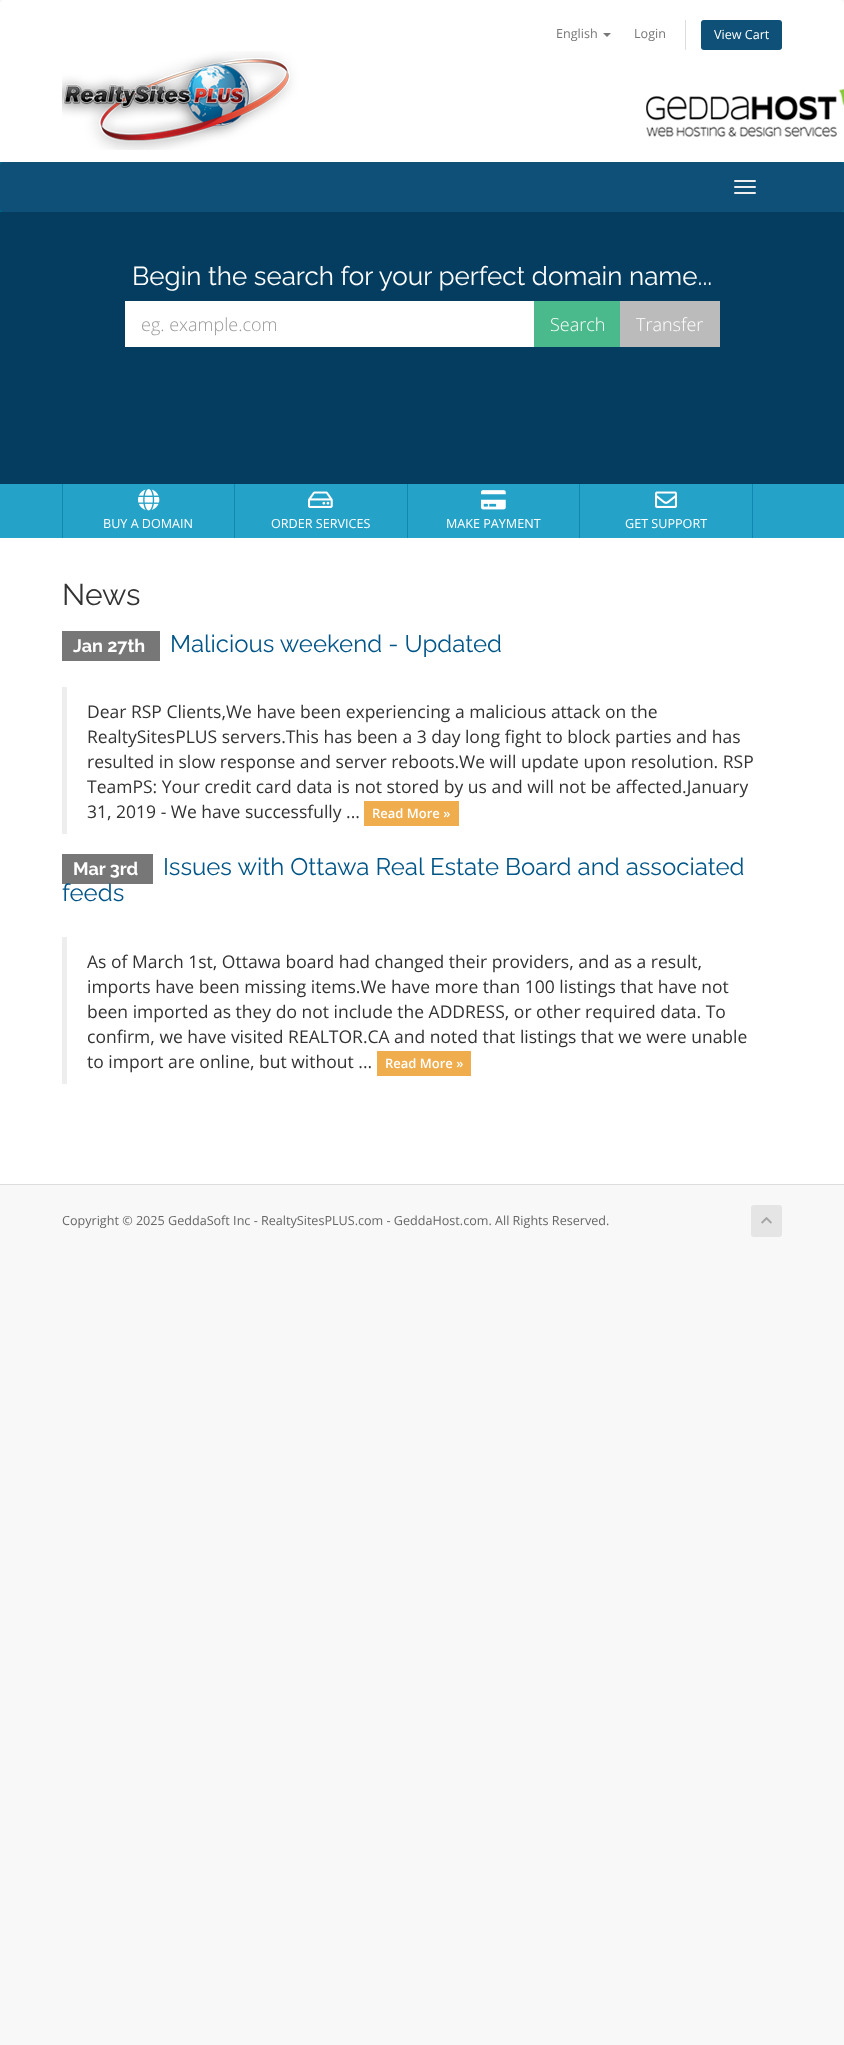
<svg xmlns="http://www.w3.org/2000/svg" xmlns:xlink="http://www.w3.org/1999/xlink" width="844" height="2045" viewBox="0 0 844 2045">
<style>
.cls-1{font:12.6px Open Sans;fill:#777777}
.cls-2{font:12.6px Open Sans;fill:#ffffff}
.cls-3{font:26px Raleway;fill:#ffffff}
.cls-4{font:300 18px Open Sans;fill:#999999}
.cls-5{font:300 18px Open Sans;fill:#ffffff}
.cls-6{font:30px Raleway;fill:#333333}
.cls-7{font:bold 18px Raleway;fill:#ffffff}
.cls-8{font:24px Raleway;fill:#005588}
.cls-9{font:17.5px Open Sans;fill:#333333}
.cls-10{font:600 13px Open Sans;fill:#ffffff}
.cls-11{font:12.6px Open Sans;fill:#666666}
</style>
<rect width="100%" height="100%" fill="#f8f8f8"/>
<path fill="#ffffff" d="M5 0H839C842 0 844 2 844 5V162H0V5C0 2 2 0 5 0Z"/>
<path fill="#777777" d="M603 33H611L607 37Z"/>
<rect fill="#dddddd" x="685" y="20" width="1" height="30"/>
<rect fill="#0e5077" x="701" y="20" width="81" height="30" rx="3"/>
<image xlink:href="image0.png" x="62" y="51" width="782" height="99"/>
<rect fill="#006687" x="0" y="162" width="844" height="50"/>
<rect fill="#0e5077" x="0" y="162" width="844" height="50" rx="4"/>
<rect fill="#eeeeee" x="734" y="180" width="22" height="2" rx="1"/>
<rect fill="#eeeeee" x="734" y="186" width="22" height="2" rx="1"/>
<rect fill="#eeeeee" x="734" y="192" width="22" height="2" rx="1"/>
<rect fill="#043d5f" x="0" y="212" width="844" height="272"/>
<rect fill="#ffffff" x="125" y="301" width="409" height="46"/>
<rect fill="#4ab98b" x="534" y="301" width="86" height="46"/>
<rect fill="#bbbbbb" x="620" y="301" width="100" height="46"/>
<rect fill="#25a2c7" x="0" y="484" width="844" height="54"/>
<rect fill="#0e88b0" x="234" y="484" width="1" height="54"/>
<rect fill="#0e88b0" x="62" y="484" width="1" height="54"/>
<image xlink:href="image1.png" x="138" y="489" width="22" height="22"/>
<rect fill="#0e88b0" x="407" y="484" width="1" height="54"/>
<image xlink:href="image2.png" x="308" y="491" width="25" height="17"/>
<rect fill="#0e88b0" x="579" y="484" width="1" height="54"/>
<image xlink:href="image3.png" x="481" y="490" width="25" height="20"/>
<rect fill="#0e88b0" x="752" y="484" width="1" height="54"/>
<image xlink:href="image4.png" x="655" y="491" width="22" height="17"/>
<rect fill="#ffffff" x="0" y="538" width="844" height="646"/>
<rect fill="#777777" x="62" y="631" width="98" height="30"/>
<rect fill="#eeeeee" x="62" y="687" width="5" height="147"/>
<rect fill="#f0ad4e" x="364" y="801" width="95" height="25"/>
<rect fill="#777777" x="62" y="854" width="91" height="30"/>
<rect fill="#eeeeee" x="62" y="937" width="5" height="147"/>
<rect fill="#f0ad4e" x="377" y="1051" width="94" height="25"/>
<rect fill="#dddddd" x="0" y="1184" width="844" height="1"/>
<rect fill="#e5e5e5" x="751" y="1205" width="31" height="32" rx="3"/>
<image xlink:href="image5.png" x="761" y="1217" width="11" height="7"/>
<text class="cls-1" x="556" y="38">English</text>
<text class="cls-1" x="634" y="38">Login</text>
<text class="cls-2" x="714" y="39">View Cart</text>
<text class="cls-3" x="132" y="285">Begin the search for your perfect domain name...</text>
<text class="cls-4" x="141" y="331">eg. example.com</text>
<text class="cls-5" x="550" y="331">Search</text>
<text class="cls-5" x="636" y="331">Transfer</text>
<text class="cls-2" x="103" y="528">BUY A DOMAIN</text>
<text class="cls-2" x="271" y="528">ORDER SERVICES</text>
<text class="cls-2" x="446" y="528">MAKE PAYMENT</text>
<text class="cls-2" x="625" y="528">GET SUPPORT</text>
<text class="cls-6" x="62" y="605">News</text>
<text class="cls-7" x="73" y="652">Jan 27th</text>
<text class="cls-8" x="170" y="652">Malicious weekend - Updated</text>
<text class="cls-9"><tspan x="87" y="718">Dear RSP Clients,We have been experiencing a malicious attack on the</tspan><tspan x="87" y="743">RealtySitesPLUS servers.This has been a 3 day long fight to block parties and has</tspan><tspan x="87" y="768">resulted in slow response and server reboots.We will update upon resolution. RSP</tspan><tspan x="87" y="793">TeamPS: Your credit card data is not stored by us and will not be affected.January</tspan><tspan x="87" y="818">31, 2019 - We have successfully ...</tspan></text>
<text class="cls-10" x="372" y="818">Read More »</text>
<text class="cls-7" x="73" y="875">Mar 3rd</text>
<text class="cls-8" x="163" y="875">Issues with Ottawa Real Estate Board and associated</text>
<text class="cls-8" x="62" y="901">feeds</text>
<text class="cls-9"><tspan x="87" y="968">As of March 1st, Ottawa board had changed their providers, and as a result,</tspan><tspan x="87" y="993">imports have been missing items.We have more than 100 listings that have not</tspan><tspan x="87" y="1018">been imported as they do not include the ADDRESS, or other required data. To</tspan><tspan x="87" y="1043">confirm, we have visited REALTOR.CA and noted that listings that we were unable</tspan><tspan x="87" y="1068">to import are online, but without ...</tspan></text>
<text class="cls-10" x="385" y="1068">Read More »</text>
<text class="cls-11" x="62" y="1225">Copyright © 2025 GeddaSoft Inc - RealtySitesPLUS.com - GeddaHost.com. All Rights Reserved.</text>
</svg>
